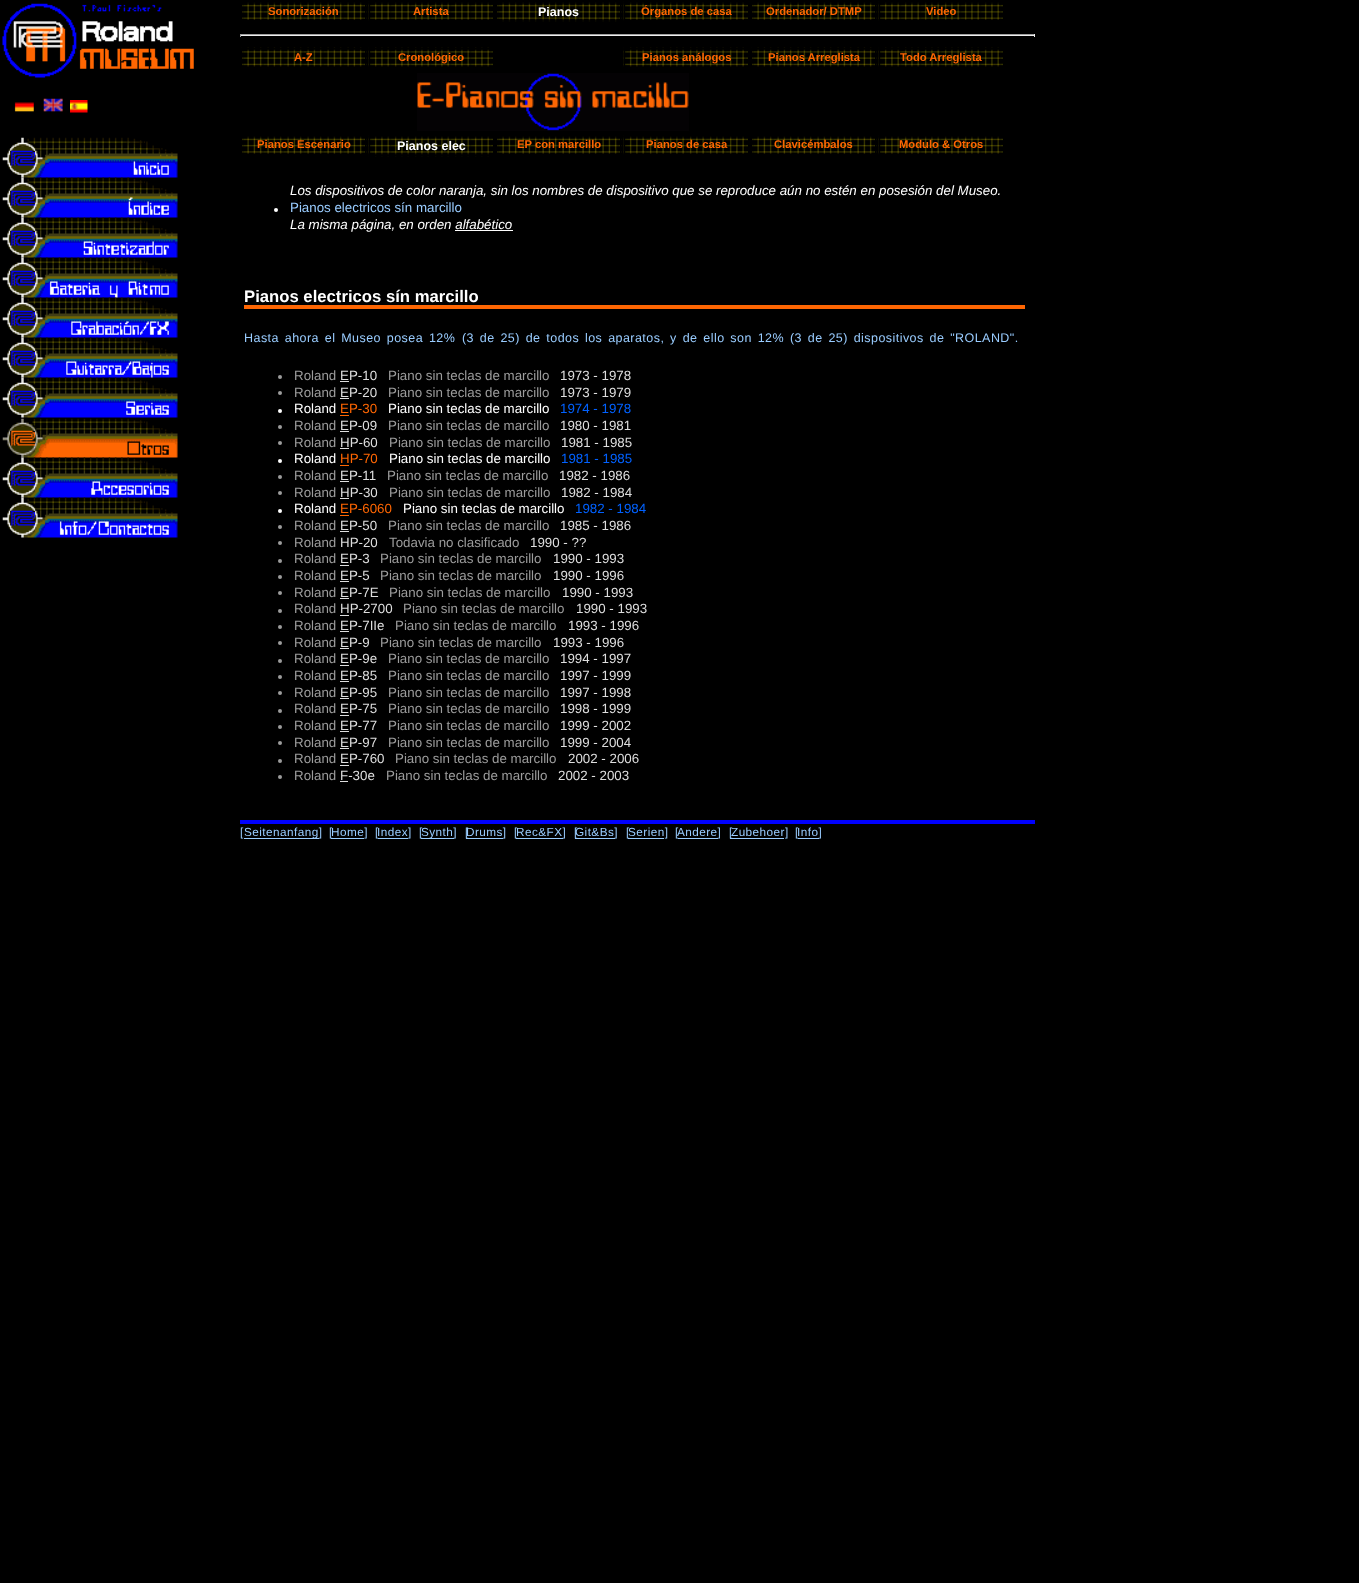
<svg xmlns="http://www.w3.org/2000/svg" xmlns:xlink="http://www.w3.org/1999/xlink" width="1359" height="1583" viewBox="0 0 1359 1583">
<style>
.cls-1{font:bold 11.25px Liberation Sans;fill:#ff6602}
.cls-2{font:bold 12.5px Liberation Sans;fill:#ffffff}
.cls-3{font:italic 13.33px Liberation Sans;fill:#ffffff}
.cls-4{font:13.33px Liberation Sans;fill:#99ccff}
.cls-5{font:bold 16.7px Liberation Sans;fill:#ffffff}
.cls-6{font:12.5px Liberation Sans;letter-spacing:0.45px;fill:#99ccff}
.cls-7{font:13.33px Liberation Sans;fill:#9c9c9c}
.cls-8{font:13.33px Liberation Sans;fill:#dedede}
.cls-9{font:13.33px Liberation Sans;fill:#ffffff}
.cls-10{font:13.33px Liberation Sans;fill:#ff6602}
.cls-11{font:13.33px Liberation Sans;fill:#0061ff}
.cls-12{font:11.75px Liberation Sans;letter-spacing:0.45px;fill:#99ccff}
</style>
<rect width="100%" height="100%" fill="#000000"/>
<image xlink:href="image0.png" x="2" y="3" width="192" height="75"/>
<image xlink:href="image1.png" x="14" y="102" width="20" height="10"/>
<image xlink:href="image2.png" x="43" y="98" width="20" height="14"/>
<image xlink:href="image3.png" x="70" y="100" width="18" height="13"/>
<image xlink:href="image4.png" x="2" y="137" width="176" height="401"/>
<image xlink:href="image5.png" x="242" y="2" width="125" height="18"/>
<rect fill="none" stroke="#000000" x="241.5" y="1.5" width="124" height="19"/>
<image xlink:href="image6.png" x="368" y="1" width="125" height="20"/>
<rect fill="none" stroke="#000000" x="369.5" y="1.5" width="124" height="19"/>
<image xlink:href="image7.png" x="497" y="2" width="125" height="20"/>
<rect fill="none" stroke="#000000" x="496.5" y="1.5" width="124" height="21"/>
<image xlink:href="image8.png" x="623" y="1" width="125" height="20"/>
<rect fill="none" stroke="#000000" x="624.5" y="1.5" width="124" height="19"/>
<image xlink:href="image5.png" x="752" y="2" width="125" height="18"/>
<rect fill="none" stroke="#000000" x="751.5" y="1.5" width="124" height="19"/>
<image xlink:href="image9.png" x="878" y="1" width="125" height="20"/>
<rect fill="none" stroke="#000000" x="879.5" y="1.5" width="124" height="19"/>
<rect fill="#9f9f9f" x="240" y="34" width="795" height="1"/>
<rect fill="#eeeeee" x="1034" y="34" width="1" height="3"/>
<rect fill="#eeeeee" x="240" y="35" width="795" height="1"/>
<rect fill="#9f9f9f" x="240" y="34" width="1" height="3"/>
<image xlink:href="image10.png" x="241" y="47" width="126" height="20"/>
<rect fill="none" stroke="#000000" x="241.5" y="48.5" width="124" height="19"/>
<image xlink:href="image11.png" x="368" y="47" width="125" height="20"/>
<rect fill="none" stroke="#000000" x="369.5" y="48.5" width="124" height="19"/>
<image xlink:href="image12.png" x="623" y="47" width="125" height="20"/>
<rect fill="none" stroke="#000000" x="624.5" y="48.5" width="124" height="19"/>
<image xlink:href="image10.png" x="751" y="47" width="126" height="20"/>
<rect fill="none" stroke="#000000" x="751.5" y="48.5" width="124" height="19"/>
<image xlink:href="image13.png" x="878" y="47" width="125" height="20"/>
<rect fill="none" stroke="#000000" x="879.5" y="48.5" width="124" height="19"/>
<image xlink:href="image14.png" x="417" y="73" width="272" height="58"/>
<image xlink:href="image15.png" x="242" y="136" width="125" height="18"/>
<rect fill="none" stroke="#000000" x="241.5" y="135.5" width="124" height="19"/>
<image xlink:href="image16.png" x="368" y="135" width="125" height="22"/>
<rect fill="none" stroke="#000000" x="369.5" y="135.5" width="124" height="20"/>
<image xlink:href="image17.png" x="497" y="136" width="125" height="18"/>
<rect fill="none" stroke="#000000" x="496.5" y="135.5" width="124" height="19"/>
<image xlink:href="image18.png" x="623" y="135" width="125" height="20"/>
<rect fill="none" stroke="#000000" x="624.5" y="135.5" width="124" height="19"/>
<image xlink:href="image15.png" x="752" y="136" width="125" height="18"/>
<rect fill="none" stroke="#000000" x="751.5" y="135.5" width="124" height="19"/>
<image xlink:href="image19.png" x="878" y="135" width="125" height="20"/>
<rect fill="none" stroke="#000000" x="879.5" y="135.5" width="124" height="19"/>
<circle fill="#ffffff" cx="276" cy="210" r="2"/>
<rect fill="#ffffff" x="455" y="230" width="58" height="1"/>
<rect fill="#ff6602" x="244" y="305" width="781" height="4"/>
<circle fill="#9c9c9c" cx="280" cy="377" r="2"/>
<rect fill="#dedede" x="340" y="381" width="9" height="1"/>
<circle fill="#9c9c9c" cx="280" cy="393" r="2"/>
<rect fill="#dedede" x="340" y="398" width="9" height="1"/>
<circle fill="#ffffff" cx="280" cy="411" r="2"/>
<rect fill="#ff6602" x="340" y="415" width="9" height="1"/>
<circle fill="#9c9c9c" cx="280" cy="427" r="2"/>
<rect fill="#dedede" x="340" y="431" width="9" height="1"/>
<circle fill="#9c9c9c" cx="280" cy="443" r="2"/>
<rect fill="#dedede" x="340" y="448" width="9" height="1"/>
<circle fill="#ffffff" cx="280" cy="461" r="2"/>
<rect fill="#ff6602" x="340" y="465" width="9" height="1"/>
<circle fill="#9c9c9c" cx="280" cy="477" r="2"/>
<rect fill="#dedede" x="340" y="481" width="9" height="1"/>
<circle fill="#9c9c9c" cx="280" cy="493" r="2"/>
<rect fill="#dedede" x="340" y="498" width="9" height="1"/>
<circle fill="#ffffff" cx="280" cy="511" r="2"/>
<rect fill="#ff6602" x="340" y="515" width="9" height="1"/>
<circle fill="#9c9c9c" cx="280" cy="527" r="2"/>
<rect fill="#dedede" x="340" y="531" width="9" height="1"/>
<circle fill="#9c9c9c" cx="280" cy="543" r="2"/>
<circle fill="#9c9c9c" cx="280" cy="561" r="2"/>
<rect fill="#dedede" x="340" y="565" width="9" height="1"/>
<circle fill="#9c9c9c" cx="280" cy="577" r="2"/>
<rect fill="#dedede" x="340" y="581" width="9" height="1"/>
<circle fill="#9c9c9c" cx="280" cy="593" r="2"/>
<rect fill="#dedede" x="340" y="598" width="9" height="1"/>
<circle fill="#9c9c9c" cx="280" cy="611" r="2"/>
<rect fill="#dedede" x="340" y="615" width="9" height="1"/>
<circle fill="#9c9c9c" cx="280" cy="627" r="2"/>
<rect fill="#dedede" x="340" y="631" width="9" height="1"/>
<circle fill="#9c9c9c" cx="280" cy="643" r="2"/>
<rect fill="#dedede" x="340" y="648" width="9" height="1"/>
<circle fill="#9c9c9c" cx="280" cy="661" r="2"/>
<rect fill="#dedede" x="340" y="665" width="9" height="1"/>
<circle fill="#9c9c9c" cx="280" cy="677" r="2"/>
<rect fill="#dedede" x="340" y="681" width="9" height="1"/>
<circle fill="#9c9c9c" cx="280" cy="693" r="2"/>
<rect fill="#dedede" x="340" y="698" width="9" height="1"/>
<circle fill="#9c9c9c" cx="280" cy="711" r="2"/>
<rect fill="#dedede" x="340" y="715" width="9" height="1"/>
<circle fill="#9c9c9c" cx="280" cy="727" r="2"/>
<rect fill="#dedede" x="340" y="731" width="9" height="1"/>
<circle fill="#9c9c9c" cx="280" cy="743" r="2"/>
<rect fill="#dedede" x="340" y="748" width="9" height="1"/>
<circle fill="#9c9c9c" cx="280" cy="761" r="2"/>
<rect fill="#dedede" x="340" y="765" width="9" height="1"/>
<circle fill="#9c9c9c" cx="280" cy="777" r="2"/>
<rect fill="#dedede" x="340" y="781" width="8" height="1"/>
<rect fill="#0000ff" x="240" y="820" width="795" height="4"/>
<rect fill="#99ccff" x="244" y="838" width="75" height="1"/>
<rect fill="#99ccff" x="331" y="838" width="33" height="1"/>
<rect fill="#99ccff" x="378" y="838" width="30" height="1"/>
<rect fill="#99ccff" x="421" y="838" width="33" height="1"/>
<rect fill="#99ccff" x="466" y="838" width="37" height="1"/>
<rect fill="#99ccff" x="516" y="838" width="47" height="1"/>
<rect fill="#99ccff" x="575" y="838" width="40" height="1"/>
<rect fill="#99ccff" x="628" y="838" width="36" height="1"/>
<rect fill="#99ccff" x="678" y="838" width="40" height="1"/>
<rect fill="#99ccff" x="730" y="838" width="54" height="1"/>
<rect fill="#99ccff" x="798" y="838" width="21" height="1"/>
<text class="cls-1" x="268" y="15">Sonorización</text>
<text class="cls-1" x="413" y="15">Artista</text>
<text class="cls-2" x="538" y="16">Pianos</text>
<text class="cls-1" x="641" y="15">Órganos de casa</text>
<text class="cls-1" x="766" y="15">Ordenador/ DTMP</text>
<text class="cls-1" x="926" y="15">Video</text>
<text class="cls-1" x="294" y="61">A-Z</text>
<text class="cls-1" x="398" y="61">Cronológico</text>
<text class="cls-1" x="642" y="61">Pianos análogos</text>
<text class="cls-1" x="768" y="61">Pianos Arreglista</text>
<text class="cls-1" x="900" y="61">Todo Arreglista</text>
<text class="cls-1" x="257" y="148">Pianos Escenario</text>
<text class="cls-2" x="397" y="150">Pianos elec</text>
<text class="cls-1" x="517" y="148">EP con marcillo</text>
<text class="cls-1" x="646" y="148">Pianos de casa</text>
<text class="cls-1" x="774" y="148">Clavicémbalos</text>
<text class="cls-1" x="899" y="148">Modulo &amp; Otros</text>
<text class="cls-3" x="290" y="195">Los dispositivos de color naranja, sin los nombres de dispositivo que se reproduce aún no estén en posesión del Museo.</text>
<text class="cls-4" x="290" y="212">Pianos electricos sín marcillo</text>
<text class="cls-3" x="290" y="229">La misma página, en orden alfabético</text>
<text class="cls-5" x="244" y="302">Pianos electricos sín marcillo</text>
<text class="cls-6" x="244" y="342" word-spacing="1.9">Hasta ahora el Museo posea 12%</text>
<text class="cls-6" x="462" y="342" word-spacing="1.9">(3 de 25) de todos los aparatos, y de ello son 12%</text>
<text class="cls-6" x="790" y="342" word-spacing="1.9">(3 de 25) dispositivos de "ROLAND".</text>
<text class="cls-7" x="294" y="380">Roland</text>
<text class="cls-8" x="340" y="380">EP-10</text>
<text class="cls-7" x="388" y="380">Piano sin teclas de marcillo</text>
<text class="cls-8" x="560" y="380">1973 - 1978</text>
<text class="cls-7" x="294" y="397">Roland</text>
<text class="cls-8" x="340" y="397">EP-20</text>
<text class="cls-7" x="388" y="397">Piano sin teclas de marcillo</text>
<text class="cls-8" x="560" y="397">1973 - 1979</text>
<text class="cls-9" x="294" y="413">Roland</text>
<text class="cls-10" x="340" y="413">EP-30</text>
<text class="cls-9" x="388" y="413">Piano sin teclas de marcillo</text>
<text class="cls-11" x="560" y="413">1974 - 1978</text>
<text class="cls-7" x="294" y="430">Roland</text>
<text class="cls-8" x="340" y="430">EP-09</text>
<text class="cls-7" x="388" y="430">Piano sin teclas de marcillo</text>
<text class="cls-8" x="560" y="430">1980 - 1981</text>
<text class="cls-7" x="294" y="447">Roland</text>
<text class="cls-8" x="340" y="447">HP-60</text>
<text class="cls-7" x="389" y="447">Piano sin teclas de marcillo</text>
<text class="cls-8" x="561" y="447">1981 - 1985</text>
<text class="cls-9" x="294" y="463">Roland</text>
<text class="cls-10" x="340" y="463">HP-70</text>
<text class="cls-9" x="389" y="463">Piano sin teclas de marcillo</text>
<text class="cls-11" x="561" y="463">1981 - 1985</text>
<text class="cls-7" x="294" y="480">Roland</text>
<text class="cls-8" x="340" y="480">EP-11</text>
<text class="cls-7" x="387" y="480">Piano sin teclas de marcillo</text>
<text class="cls-8" x="559" y="480">1982 - 1986</text>
<text class="cls-7" x="294" y="497">Roland</text>
<text class="cls-8" x="340" y="497">HP-30</text>
<text class="cls-7" x="389" y="497">Piano sin teclas de marcillo</text>
<text class="cls-8" x="561" y="497">1982 - 1984</text>
<text class="cls-9" x="294" y="513">Roland</text>
<text class="cls-10" x="340" y="513">EP-6060</text>
<text class="cls-9" x="403" y="513">Piano sin teclas de marcillo</text>
<text class="cls-11" x="575" y="513">1982 - 1984</text>
<text class="cls-7" x="294" y="530">Roland</text>
<text class="cls-8" x="340" y="530">EP-50</text>
<text class="cls-7" x="388" y="530">Piano sin teclas de marcillo</text>
<text class="cls-8" x="560" y="530">1985 - 1986</text>
<text class="cls-7" x="294" y="547">Roland</text>
<text class="cls-8" x="340" y="547">HP-20</text>
<text class="cls-7" x="389" y="547">Todavia no clasificado</text>
<text class="cls-8" x="530" y="547">1990 - ??</text>
<text class="cls-7" x="294" y="563">Roland</text>
<text class="cls-8" x="340" y="563">EP-3</text>
<text class="cls-7" x="380" y="563">Piano sin teclas de marcillo</text>
<text class="cls-8" x="553" y="563">1990 - 1993</text>
<text class="cls-7" x="294" y="580">Roland</text>
<text class="cls-8" x="340" y="580">EP-5</text>
<text class="cls-7" x="380" y="580">Piano sin teclas de marcillo</text>
<text class="cls-8" x="553" y="580">1990 - 1996</text>
<text class="cls-7" x="294" y="597">Roland</text>
<text class="cls-8" x="340" y="597">EP-7E</text>
<text class="cls-7" x="389" y="597">Piano sin teclas de marcillo</text>
<text class="cls-8" x="562" y="597">1990 - 1993</text>
<text class="cls-7" x="294" y="613">Roland</text>
<text class="cls-8" x="340" y="613">HP-2700</text>
<text class="cls-7" x="403" y="613">Piano sin teclas de marcillo</text>
<text class="cls-8" x="576" y="613">1990 - 1993</text>
<text class="cls-7" x="294" y="630">Roland</text>
<text class="cls-8" x="340" y="630">EP-7IIe</text>
<text class="cls-7" x="395" y="630">Piano sin teclas de marcillo</text>
<text class="cls-8" x="568" y="630">1993 - 1996</text>
<text class="cls-7" x="294" y="647">Roland</text>
<text class="cls-8" x="340" y="647">EP-9</text>
<text class="cls-7" x="380" y="647">Piano sin teclas de marcillo</text>
<text class="cls-8" x="553" y="647">1993 - 1996</text>
<text class="cls-7" x="294" y="663">Roland</text>
<text class="cls-8" x="340" y="663">EP-9e</text>
<text class="cls-7" x="388" y="663">Piano sin teclas de marcillo</text>
<text class="cls-8" x="560" y="663">1994 - 1997</text>
<text class="cls-7" x="294" y="680">Roland</text>
<text class="cls-8" x="340" y="680">EP-85</text>
<text class="cls-7" x="388" y="680">Piano sin teclas de marcillo</text>
<text class="cls-8" x="560" y="680">1997 - 1999</text>
<text class="cls-7" x="294" y="697">Roland</text>
<text class="cls-8" x="340" y="697">EP-95</text>
<text class="cls-7" x="388" y="697">Piano sin teclas de marcillo</text>
<text class="cls-8" x="560" y="697">1997 - 1998</text>
<text class="cls-7" x="294" y="713">Roland</text>
<text class="cls-8" x="340" y="713">EP-75</text>
<text class="cls-7" x="388" y="713">Piano sin teclas de marcillo</text>
<text class="cls-8" x="560" y="713">1998 - 1999</text>
<text class="cls-7" x="294" y="730">Roland</text>
<text class="cls-8" x="340" y="730">EP-77</text>
<text class="cls-7" x="388" y="730">Piano sin teclas de marcillo</text>
<text class="cls-8" x="560" y="730">1999 - 2002</text>
<text class="cls-7" x="294" y="747">Roland</text>
<text class="cls-8" x="340" y="747">EP-97</text>
<text class="cls-7" x="388" y="747">Piano sin teclas de marcillo</text>
<text class="cls-8" x="560" y="747">1999 - 2004</text>
<text class="cls-7" x="294" y="763">Roland</text>
<text class="cls-8" x="340" y="763">EP-760</text>
<text class="cls-7" x="395" y="763">Piano sin teclas de marcillo</text>
<text class="cls-8" x="568" y="763">2002 - 2006</text>
<text class="cls-7" x="294" y="780">Roland</text>
<text class="cls-8" x="340" y="780">F-30e</text>
<text class="cls-7" x="386" y="780">Piano sin teclas de marcillo</text>
<text class="cls-8" x="558" y="780">2002 - 2003</text>
<text class="cls-12" x="240" y="836">[</text>
<text class="cls-12" x="244" y="836">Seitenanfang]</text>
<text class="cls-12" x="329" y="836">[</text>
<text class="cls-12" x="331" y="836">Home]</text>
<text class="cls-12" x="375" y="836">[</text>
<text class="cls-12" x="377" y="836">Index]</text>
<text class="cls-12" x="419" y="836">[</text>
<text class="cls-12" x="421" y="836">Synth]</text>
<text class="cls-12" x="465" y="836">[</text>
<text class="cls-12" x="466" y="836">Drums]</text>
<text class="cls-12" x="514" y="836">[</text>
<text class="cls-12" x="516" y="836">Rec&amp;FX]</text>
<text class="cls-12" x="574" y="836">[</text>
<text class="cls-12" x="575" y="836">Git&amp;Bs]</text>
<text class="cls-12" x="626" y="836">[</text>
<text class="cls-12" x="628" y="836">Serien]</text>
<text class="cls-12" x="675" y="836">[</text>
<text class="cls-12" x="677" y="836">Andere]</text>
<text class="cls-12" x="729" y="836">[</text>
<text class="cls-12" x="731" y="836">Zubehoer]</text>
<text class="cls-12" x="795" y="836">[</text>
<text class="cls-12" x="797" y="836">Info]</text>
</svg>
